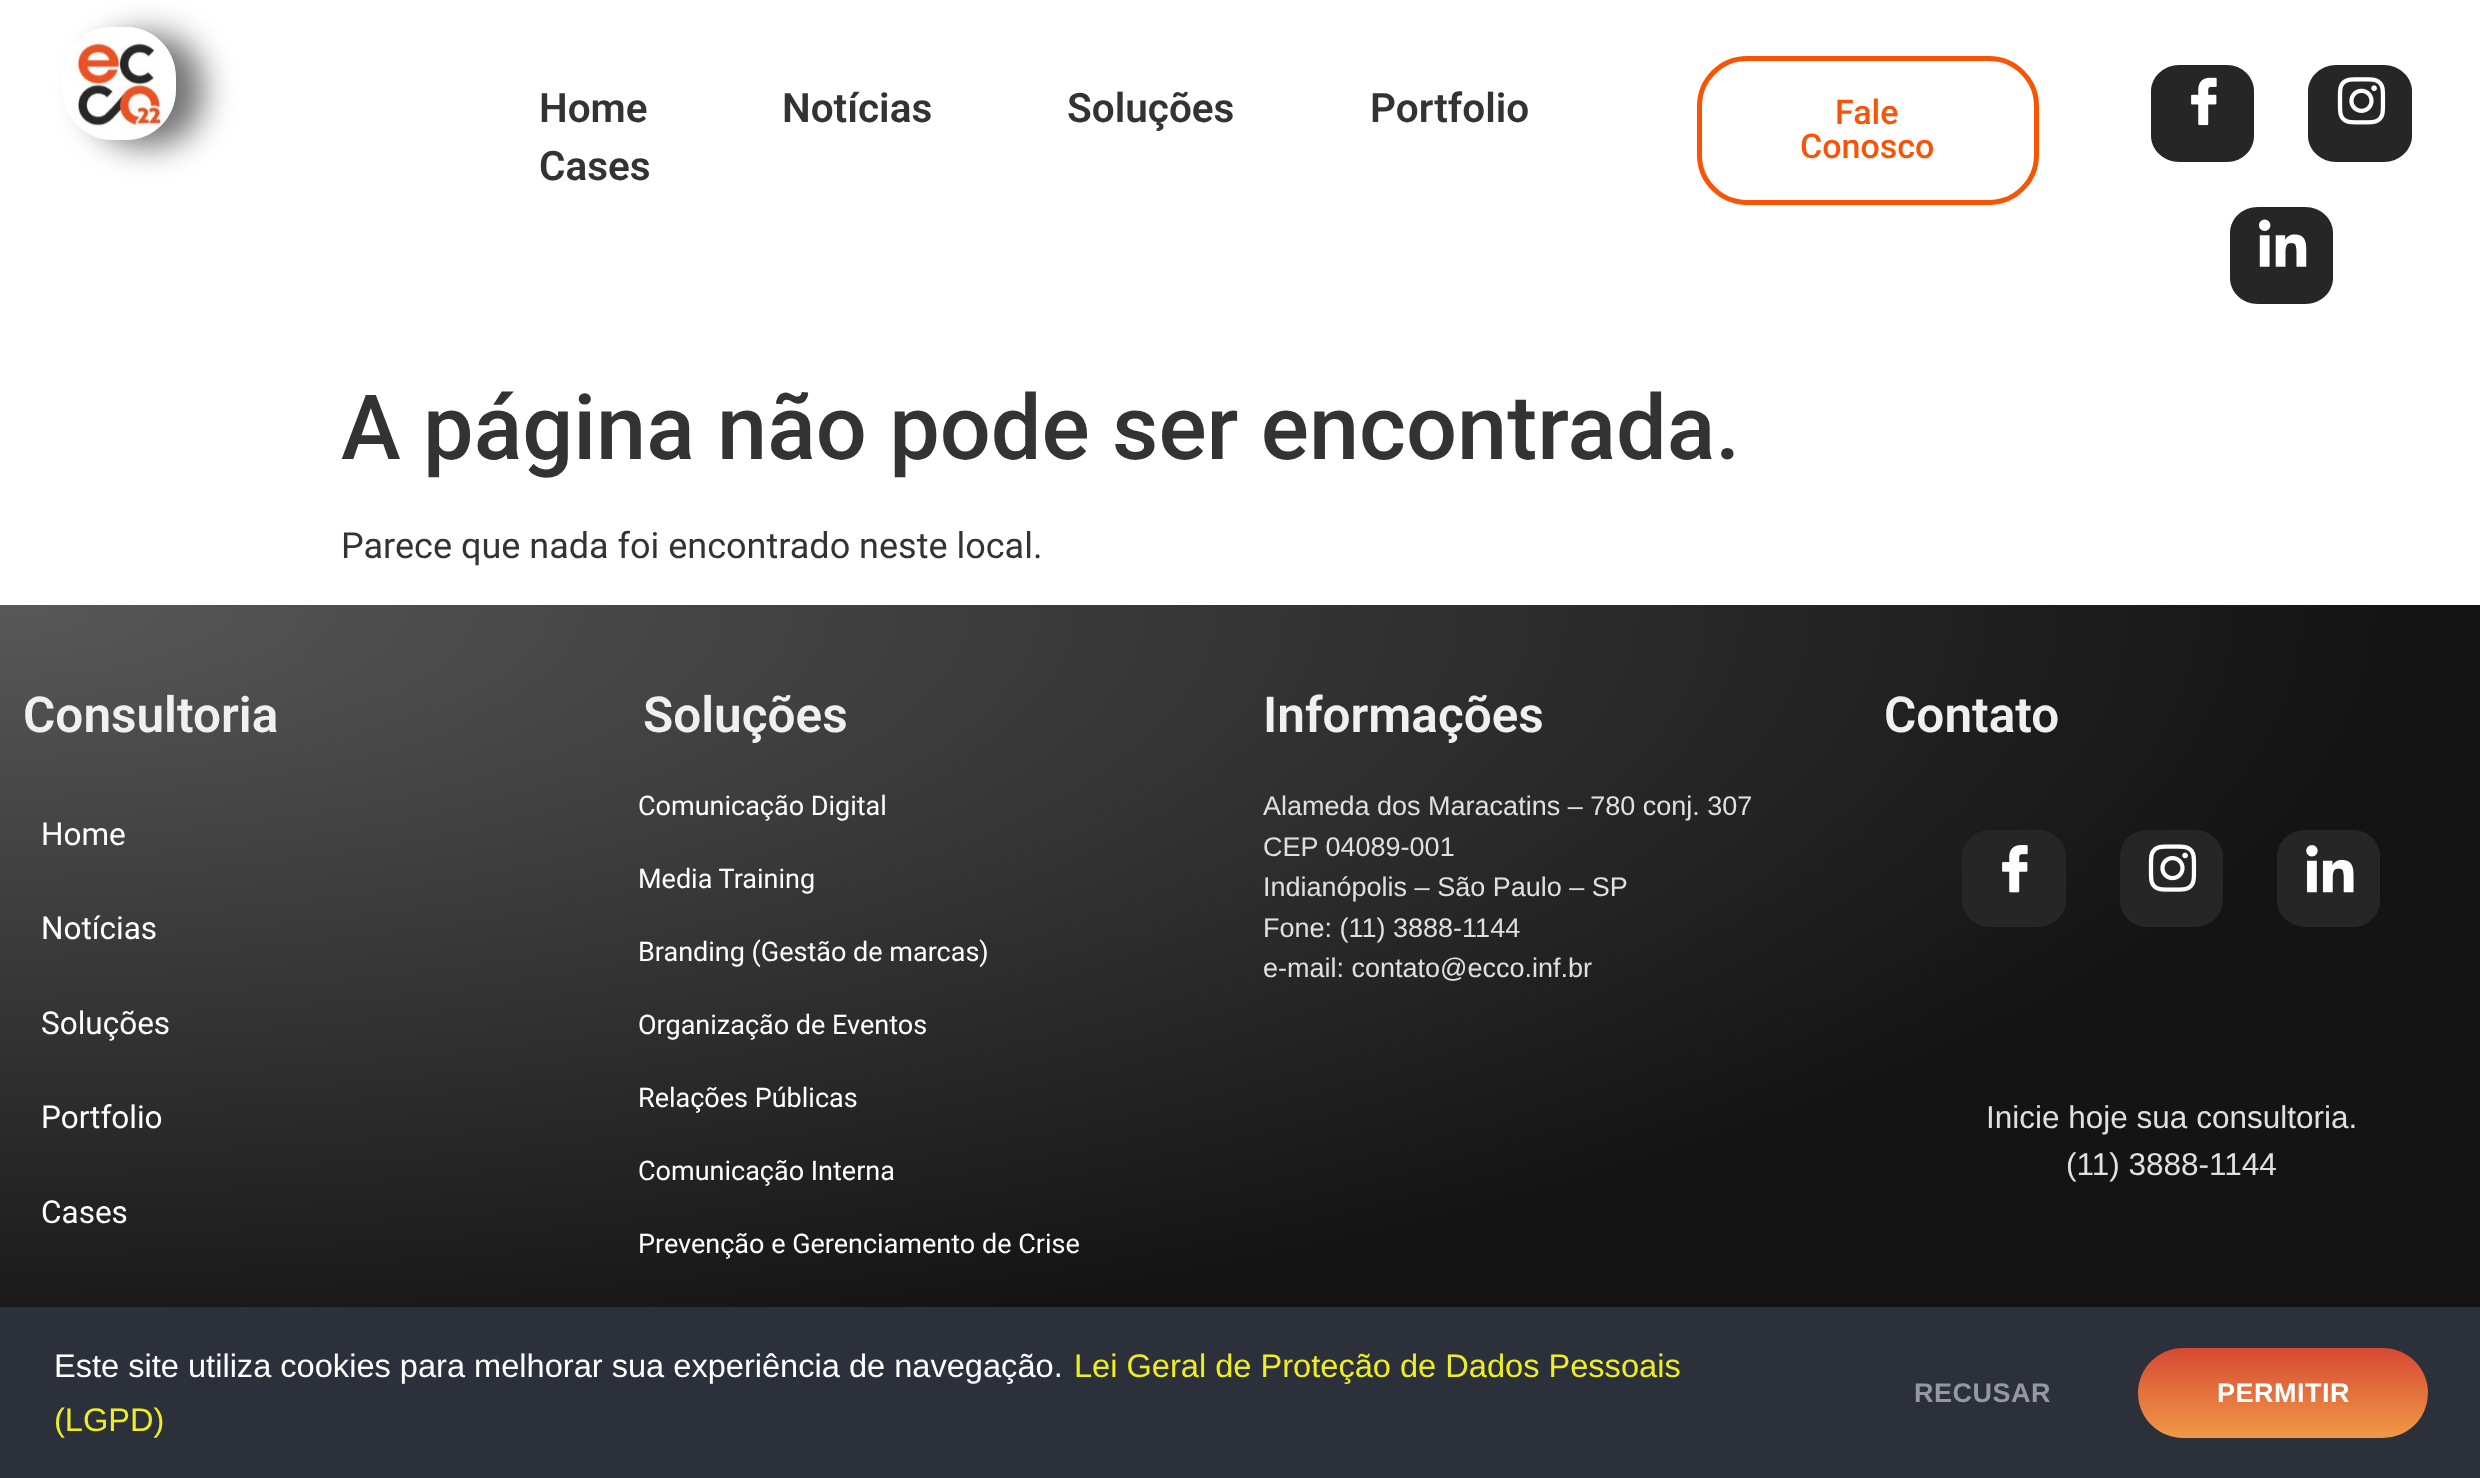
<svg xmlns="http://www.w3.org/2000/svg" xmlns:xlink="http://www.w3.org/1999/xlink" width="2480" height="1478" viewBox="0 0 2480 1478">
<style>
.cls-1{font:600 40.5px Roboto;fill:#333333}
.cls-2{font:500 34px Roboto;fill:#f85405}
.cls-3{font:500 90px Roboto;fill:#333333}
.cls-4{font:36px Roboto;fill:#333333}
.cls-5{font:600 49.5px Roboto;fill:#f0f0f0}
.cls-6{font:31.5px Roboto;fill:#ffffff}
.cls-7{font:27px Roboto;fill:#ffffff}
.cls-8{font:27px Liberation Sans;fill:#e0e0e0}
.cls-9{font:31.5px Liberation Sans;fill:#e0e0e0}
.cls-10{font:32.6px Liberation Sans;fill:#ffffff}
.cls-11{font:32.6px Liberation Sans;fill:#eeee22}
.cls-12{font:bold 27px Liberation Sans;letter-spacing:0.5px;fill:#95989d}
.cls-13{font:bold 27px Liberation Sans;letter-spacing:0.5px;fill:#ffffff}
</style>
<defs>
<clipPath id="clip1"><path d="M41 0H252V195H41ZM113 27H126C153.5 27 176 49.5 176 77V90C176 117.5 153.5 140 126 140H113C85.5 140 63 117.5 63 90V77C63 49.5 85.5 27 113 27Z" clip-rule="evenodd"/></clipPath>
<radialGradient id="g1" gradientUnits="userSpaceOnUse" cx="0" cy="0" r="1" gradientTransform="matrix(3510 0 0 1139 0 605)"><stop offset="0" stop-color="#585858"/><stop offset="0.68" stop-color="#141414"/></radialGradient>
<linearGradient id="g2" gradientUnits="userSpaceOnUse" x1="2283" y1="1348" x2="2283" y2="1438"><stop offset="0" stop-color="#d64933"/><stop offset="1" stop-color="#f19947"/></linearGradient>
</defs>
<rect width="100%" height="100%" fill="#ffffff"/>
<g clip-path="url(#clip1)">
<rect fill="#000000" fill-opacity="0.55" filter="blur(16px)" x="90" y="34" width="113" height="112" rx="50"/>
</g>
<image xlink:href="image0.png" x="75" y="27" width="101" height="114"/>
<rect fill="none" stroke="#f85405" stroke-width="5" x="1699.5" y="58.5" width="337" height="144" rx="47.5"/>
<path fill="#262626" d="M2179 65H2227C2242 65 2254 77 2254 91V136C2254 150 2242 162 2227 162H2179C2164 162 2151 150 2151 136V91C2151 77 2164 65 2179 65Z"/>
<image xlink:href="image1.png" x="2191" y="77" width="26" height="49"/>
<path fill="#262626" d="M2336 65H2384C2399 65 2412 77 2412 91V136C2412 150 2399 162 2384 162H2336C2321 162 2308 150 2308 136V91C2308 77 2321 65 2336 65Z"/>
<image xlink:href="image2.png" x="2337" y="77" width="49" height="48"/>
<path fill="#262626" d="M2258 207H2305C2321 207 2333 219 2333 233V278C2333 292 2321 304 2305 304H2258C2242 304 2230 292 2230 278V233C2230 219 2242 207 2258 207Z"/>
<image xlink:href="image3.png" x="2259" y="219" width="48" height="48"/>
<rect fill="url(#g1)" x="0" y="605" width="2480" height="702"/>
<path fill="#262626" d="M1990 830H2038C2053 830 2066 842 2066 856V901C2066 915 2053 927 2038 927H1990C1975 927 1962 915 1962 901V856C1962 842 1975 830 1990 830Z"/>
<image xlink:href="image4.png" x="2002" y="845" width="26" height="48"/>
<path fill="#262626" d="M2147 830H2195C2210 830 2223 842 2223 856V901C2223 915 2210 927 2195 927H2147C2132 927 2120 915 2120 901V856C2120 842 2132 830 2147 830Z"/>
<image xlink:href="image5.png" x="2148" y="844" width="49" height="48"/>
<path fill="#262626" d="M2305 830H2353C2368 830 2380 842 2380 856V901C2380 915 2368 927 2353 927H2305C2290 927 2277 915 2277 901V856C2277 842 2290 830 2305 830Z"/>
<image xlink:href="image6.png" x="2306" y="845" width="48" height="48"/>
<rect fill="#2b303a" x="0" y="1307" width="2480" height="171"/>
<rect fill="url(#g2)" x="2138" y="1348" width="290" height="90" rx="45"/>
<text class="cls-1" x="539" y="122">Home</text>
<text class="cls-1" x="782" y="122">Notícias</text>
<text class="cls-1" x="1067" y="122">Soluções</text>
<text class="cls-1" x="1370" y="122">Portfolio</text>
<text class="cls-1" x="539" y="180">Cases</text>
<text class="cls-2" x="1835" y="124">Fale</text>
<text class="cls-2" x="1800" y="158">Conosco</text>
<text class="cls-3" x="341" y="459">A página não pode ser encontrada.</text>
<text class="cls-4" x="341" y="558">Parece que nada foi encontrado neste local.</text>
<text class="cls-5" x="23" y="732">Consultoria</text>
<text class="cls-6" x="41" y="845">Home</text>
<text class="cls-6" x="41" y="939">Notícias</text>
<text class="cls-6" x="41" y="1034">Soluções</text>
<text class="cls-6" x="41" y="1128">Portfolio</text>
<text class="cls-6" x="41" y="1223">Cases</text>
<text class="cls-5" x="643" y="732">Soluções</text>
<text class="cls-7" x="638" y="815">Comunicação Digital</text>
<text class="cls-7" x="638" y="888">Media Training</text>
<text class="cls-7" x="638" y="961">Branding (Gestão de marcas)</text>
<text class="cls-7" x="638" y="1034">Organização de Eventos</text>
<text class="cls-7" x="638" y="1107">Relações Públicas</text>
<text class="cls-7" x="638" y="1180">Comunicação Interna</text>
<text class="cls-7" x="638" y="1253">Prevenção e Gerenciamento de Crise</text>
<text class="cls-5" x="1263" y="732">Informações</text>
<text class="cls-8"><tspan x="1263" y="815">Alameda dos Maracatins – 780 conj. 307</tspan><tspan x="1263" y="856">CEP 04089-001</tspan><tspan x="1263" y="896">Indianópolis – São Paulo – SP</tspan><tspan x="1263" y="937">Fone: (11) 3888-1144</tspan><tspan x="1263" y="977">e-mail: contato@ecco.inf.br</tspan></text>
<text class="cls-5" x="1884" y="732">Contato</text>
<text class="cls-9" x="1986" y="1128">Inicie hoje sua consultoria.</text>
<text class="cls-9" x="2066" y="1175">(11) 3888-1144</text>
<text class="cls-10" x="54" y="1377">Este site utiliza cookies para melhorar sua experiência de navegação.</text>
<text class="cls-11" x="1074" y="1377">Lei Geral de Proteção de Dados Pessoais</text>
<text class="cls-11" x="54" y="1431">(LGPD)</text>
<text class="cls-12" x="1914" y="1402">RECUSAR</text>
<text class="cls-13" x="2217" y="1402">PERMITIR</text>
</svg>
